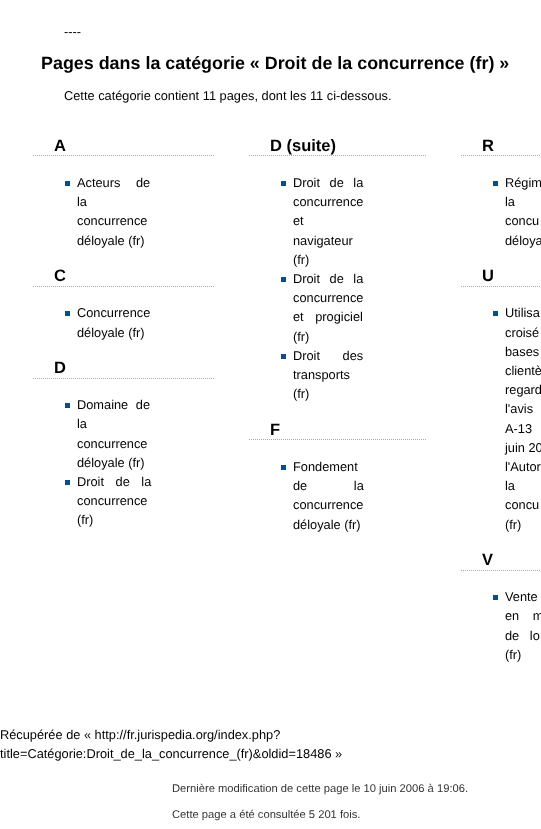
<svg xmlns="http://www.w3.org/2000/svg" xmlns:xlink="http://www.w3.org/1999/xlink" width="541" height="829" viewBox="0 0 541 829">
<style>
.cls-1{font:12.8px Liberation Sans;fill:#000000}
.cls-2{font:bold 17.9px Liberation Sans;fill:#000000}
.cls-3{font:bold 16.5px Liberation Sans;fill:#000000}
.cls-4{font:11.2px Liberation Sans;fill:#333333}
</style>
<rect width="100%" height="100%" fill="#ffffff"/>
<path fill="none" stroke="#aaaaaa" stroke-dasharray="1 1" d="M33 155.5H215"/>
<rect fill="#00528c" x="65" y="181" width="5" height="5"/>
<path fill="none" stroke="#aaaaaa" stroke-dasharray="1 1" d="M33 286.5H215"/>
<rect fill="#00528c" x="65" y="311" width="5" height="5"/>
<path fill="none" stroke="#aaaaaa" stroke-dasharray="1 1" d="M33 378.5H215"/>
<rect fill="#00528c" x="65" y="403" width="5" height="5"/>
<rect fill="#00528c" x="65" y="480" width="5" height="5"/>
<path fill="none" stroke="#aaaaaa" stroke-dasharray="1 1" d="M249 155.5H427"/>
<rect fill="#00528c" x="281" y="181" width="5" height="5"/>
<rect fill="#00528c" x="281" y="277" width="5" height="5"/>
<rect fill="#00528c" x="281" y="354" width="5" height="5"/>
<path fill="none" stroke="#aaaaaa" stroke-dasharray="1 1" d="M249 439.5H427"/>
<rect fill="#00528c" x="281" y="465" width="5" height="5"/>
<path fill="none" stroke="#aaaaaa" stroke-dasharray="1 1" d="M461 155.5H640"/>
<rect fill="#00528c" x="493" y="181" width="5" height="5"/>
<path fill="none" stroke="#aaaaaa" stroke-dasharray="1 1" d="M461 286.5H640"/>
<rect fill="#00528c" x="493" y="311" width="5" height="5"/>
<path fill="none" stroke="#aaaaaa" stroke-dasharray="1 1" d="M461 570.5H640"/>
<rect fill="#00528c" x="493" y="595" width="5" height="5"/>
<text class="cls-1" x="64" y="36">----</text>
<text class="cls-2" x="41" y="69">Pages dans la catégorie « Droit de la concurrence (fr) »</text>
<text class="cls-1" x="64" y="100">Cette catégorie contient 11 pages, dont les 11 ci-dessous.</text>
<text class="cls-3" x="54" y="151">A</text>
<text class="cls-1"><tspan x="77" y="187" word-spacing="12">Acteurs de</tspan><tspan x="77" y="206">la</tspan><tspan x="77" y="225">concurrence</tspan><tspan x="77" y="245">déloyale (fr)</tspan></text>
<text class="cls-3" x="54" y="281">C</text>
<text class="cls-1"><tspan x="77" y="317">Concurrence</tspan><tspan x="77" y="337">déloyale (fr)</tspan></text>
<text class="cls-3" x="54" y="373">D</text>
<text class="cls-1"><tspan x="77" y="409" word-spacing="4">Domaine de</tspan><tspan x="77" y="428">la</tspan><tspan x="77" y="448">concurrence</tspan><tspan x="77" y="467">déloyale (fr)</tspan><tspan x="77" y="486" word-spacing="8">Droit de la</tspan><tspan x="77" y="505">concurrence</tspan><tspan x="77" y="524">(fr)</tspan></text>
<text class="cls-3" x="270" y="151">D (suite)</text>
<text class="cls-1"><tspan x="293" y="187" word-spacing="6">Droit de la</tspan><tspan x="293" y="206">concurrence</tspan><tspan x="293" y="225">et</tspan><tspan x="293" y="245">navigateur</tspan><tspan x="293" y="264">(fr)</tspan><tspan x="293" y="283" word-spacing="6">Droit de la</tspan><tspan x="293" y="302">concurrence</tspan><tspan x="293" y="321" word-spacing="8">et progiciel</tspan><tspan x="293" y="341">(fr)</tspan><tspan x="293" y="360" word-spacing="19">Droit des</tspan><tspan x="293" y="379">transports</tspan><tspan x="293" y="398">(fr)</tspan></text>
<text class="cls-3" x="270" y="435">F</text>
<text class="cls-1"><tspan x="293" y="471">Fondement</tspan><tspan x="293" y="490" word-spacing="43">de la</tspan><tspan x="293" y="509">concurrence</tspan><tspan x="293" y="529">déloyale (fr)</tspan></text>
<text class="cls-3" x="482" y="151">R</text>
<text class="cls-1"><tspan x="505" y="187" word-spacing="8">Régim</tspan><tspan x="505" y="206">la</tspan><tspan x="505" y="225">concu</tspan><tspan x="505" y="245">déloya</tspan></text>
<text class="cls-3" x="482" y="281">U</text>
<text class="cls-1"><tspan x="505" y="317">Utilisa</tspan><tspan x="505" y="337" word-spacing="11">croisé</tspan><tspan x="505" y="356" word-spacing="18">bases</tspan><tspan x="505" y="375" word-spacing="6">clientè</tspan><tspan x="505" y="394" word-spacing="16">regard</tspan><tspan x="505" y="413" word-spacing="2">l'avis</tspan><tspan x="505" y="433" word-spacing="4">A-13</tspan><tspan x="505" y="452">juin 20</tspan><tspan x="505" y="471" word-spacing="3">l'Autor</tspan><tspan x="505" y="490">la</tspan><tspan x="505" y="509">concu</tspan><tspan x="505" y="529">(fr)</tspan></text>
<text class="cls-3" x="482" y="565">V</text>
<text class="cls-1"><tspan x="505" y="601" word-spacing="14">Vente</tspan><tspan x="505" y="620" word-spacing="10">en m</tspan><tspan x="505" y="640" word-spacing="7">de lo</tspan><tspan x="505" y="659">(fr)</tspan></text>
<text class="cls-1"><tspan x="0" y="739">Récupérée de « http://fr.jurispedia.org/index.php?</tspan><tspan x="0" y="758">title=Catégorie:Droit_de_la_concurrence_(fr)&amp;oldid=18486 »</tspan></text>
<text class="cls-4" x="172" y="792">Dernière modification de cette page le 10 juin 2006 à 19:06.</text>
<text class="cls-4" x="172" y="818">Cette page a été consultée 5 201 fois.</text>
</svg>
